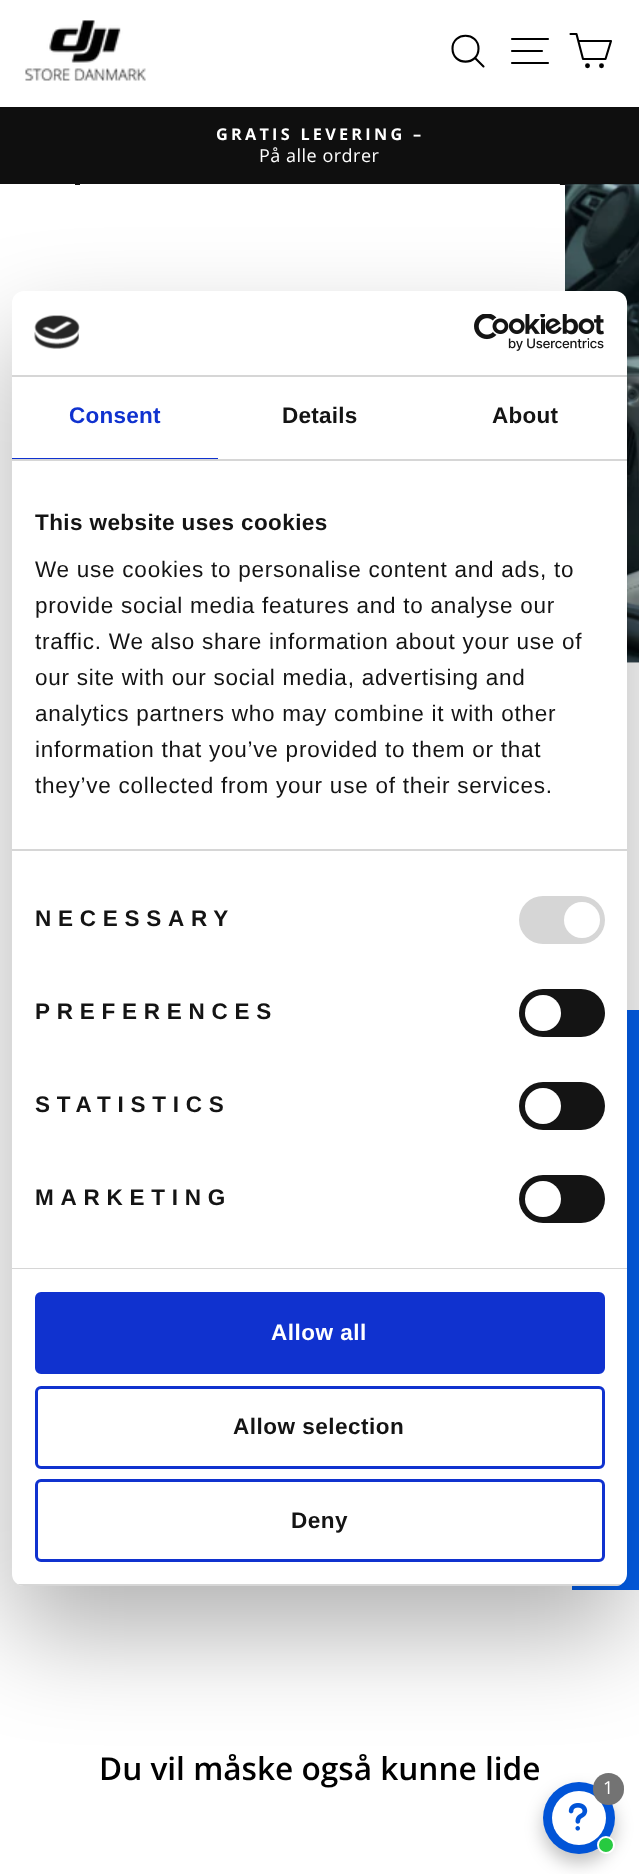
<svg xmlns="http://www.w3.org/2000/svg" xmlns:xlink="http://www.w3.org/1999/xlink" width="639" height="1874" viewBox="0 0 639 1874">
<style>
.cls-1{font:bold 16.25px Open Sans;letter-spacing:3.25px;fill:#ffffff}
.cls-2{font:18px Open Sans;letter-spacing:0.5px;fill:#ffffff}
.cls-3{font:600 31.6px Open Sans;fill:#000000}
.cls-4{font:bold 22.5px Liberation Sans;letter-spacing:0.25px;fill:#1032cf}
.cls-5{font:bold 22.5px Liberation Sans;letter-spacing:0.25px;fill:#141414}
.cls-6{font:bold 22.5px Liberation Sans;letter-spacing:0.4px;fill:#141414}
.cls-7{font:22.5px Liberation Sans;letter-spacing:0.75px;fill:#141414}
.cls-8{font:bold 22.5px Liberation Sans;letter-spacing:6.75px;fill:#141414}
.cls-9{font:bold 22.5px Liberation Sans;letter-spacing:0.5px;fill:#ffffff}
.cls-10{font:bold 22.5px Liberation Sans;letter-spacing:0.5px;fill:#141414}
</style>
<defs>
<clipPath id="clip1"><rect x="12" y="291" width="615" height="1295" rx="12"/></clipPath>
</defs>
<rect width="100%" height="100%" fill="#ffffff"/>
<rect fill="#0f0f0f" x="0" y="107" width="639" height="78"/>
<rect fill="#000000" fill-opacity="0.2" filter="blur(1px)" x="0" y="-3" width="639" height="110"/>
<rect fill="#ffffff" x="0" y="0" width="639" height="107"/>
<image xlink:href="image0.png" x="25" y="20" width="121" height="61"/>
<path fill="none" stroke="#000000" stroke-width="2.1" stroke-linecap="round" stroke-linejoin="round" d="M478.5 48.5C478.5 66 452.5 66 452.5 48.5C452.5 31.5 478.5 31.5 478.5 48.5ZM483.5 66.5L475 58"/>
<path fill="none" stroke="#000000" stroke-width="2.1" stroke-linecap="round" stroke-linejoin="round" d="M512 39H548M512 51H542M512 63H548"/>
<path fill="none" stroke="#000000" stroke-width="2.1" stroke-linecap="round" stroke-linejoin="round" d="M578.5 41H611L605.5 59H583L576.5 34H570.5"/>
<circle fill="#000000" stroke="#000000" stroke-width="2.1" cx="587.5" cy="65.8" r="1.4"/>
<circle fill="#000000" stroke="#000000" stroke-width="2.1" cx="601.5" cy="65.8" r="1.4"/>
<rect fill="#ffffff" x="0" y="184" width="75" height="1"/>
<image xlink:href="image1.png" x="80" y="184" width="480" height="107"/>
<image xlink:href="image2.png" x="565" y="184" width="74" height="479"/>
<rect fill="#0360ef" x="572" y="1010" width="67" height="580"/>
<rect fill="#000000" fill-opacity="0.25" filter="blur(9px)" x="543" y="1791" width="72" height="72" rx="36"/>
<circle fill="#0154d7" cx="579" cy="1818" r="36"/>
<circle fill="#ffffff" cx="579" cy="1818" r="27"/>
<rect fill="#737373" x="593" y="1773" width="31" height="32" rx="15.5"/>
<rect fill="#000000" fill-opacity="0.3" filter="blur(51px)" x="12" y="339" width="615" height="1295" rx="12"/>
<rect fill="#ffffff" x="12" y="291" width="615" height="1295" rx="12"/>
<rect fill="#d6d6d6" x="12" y="375" width="615" height="2"/>
<image xlink:href="image3.png" x="34" y="315" width="46" height="34"/>
<image xlink:href="image4.png" x="474" y="314" width="130" height="37"/>
<rect fill="#d6d6d6" x="12" y="459" width="615" height="2"/>
<rect fill="#1032cf" x="12" y="458" width="206" height="1"/>
<rect fill="#d6d6d6" x="12" y="849" width="615" height="2"/>
<rect fill="#d6d6d6" x="12" y="1268" width="615" height="1"/>
<rect fill="#d6d6d6" x="519" y="896" width="86" height="48" rx="24"/>
<circle fill="#ffffff" cx="582" cy="920" r="18"/>
<rect fill="#141414" x="519" y="989" width="86" height="48" rx="24"/>
<circle fill="#ffffff" cx="543" cy="1013" r="18"/>
<rect fill="#141414" x="519" y="1082" width="86" height="48" rx="24"/>
<circle fill="#ffffff" cx="543" cy="1106" r="18"/>
<rect fill="#141414" x="519" y="1175" width="86" height="48" rx="24"/>
<circle fill="#ffffff" cx="543" cy="1199" r="18"/>
<g clip-path="url(#clip1)">
<rect fill="#d6d6d6" x="12" y="1584" width="615" height="2"/>
</g>
<rect fill="#1032cf" stroke="#1032cf" stroke-width="3" x="36.5" y="1293.5" width="567" height="79" rx="4.5"/>
<rect fill="none" stroke="#1032cf" stroke-width="3" x="36.5" y="1387.5" width="567" height="80" rx="4.5"/>
<rect fill="none" stroke="#1032cf" stroke-width="3" x="36.5" y="1480.5" width="567" height="80" rx="4.5"/>
<image xlink:href="image5.png" x="568" y="1803" width="20" height="28"/>
<circle fill="#27ca40" stroke="#ffffff" stroke-width="2" cx="606" cy="1845" r="8"/>
<text class="cls-1" x="216" y="140">GRATIS LEVERING –</text>
<text class="cls-2" x="259" y="162">På alle ordrer</text>
<text class="cls-3" x="99" y="1780">Du vil måske også kunne lide</text>
<text class="cls-4" x="69" y="423">Consent</text>
<text class="cls-5" x="282" y="423">Details</text>
<text class="cls-5" x="492" y="423">About</text>
<text class="cls-6" x="35" y="530">This website uses cookies</text>
<text class="cls-7"><tspan x="35" y="577">We use cookies to personalise content and ads, to</tspan><tspan x="35" y="613">provide social media features and to analyse our</tspan><tspan x="35" y="649">traffic. We also share information about your use of</tspan><tspan x="35" y="685">our site with our social media, advertising and</tspan><tspan x="35" y="721">analytics partners who may combine it with other</tspan><tspan x="35" y="757">information that you’ve provided to them or that</tspan><tspan x="35" y="793">they’ve collected from your use of their services.</tspan></text>
<text class="cls-8" x="35" y="926">NECESSARY</text>
<text class="cls-8" x="35" y="1019">PREFERENCES</text>
<text class="cls-8" x="35" y="1112">STATISTICS</text>
<text class="cls-8" x="35" y="1205">MARKETING</text>
<text class="cls-9" x="271" y="1340">Allow all</text>
<text class="cls-10" x="233" y="1434">Allow selection</text>
<text class="cls-10" x="291" y="1528">Deny</text>
<text class="cls-2" x="603" y="1794">1</text>
</svg>
